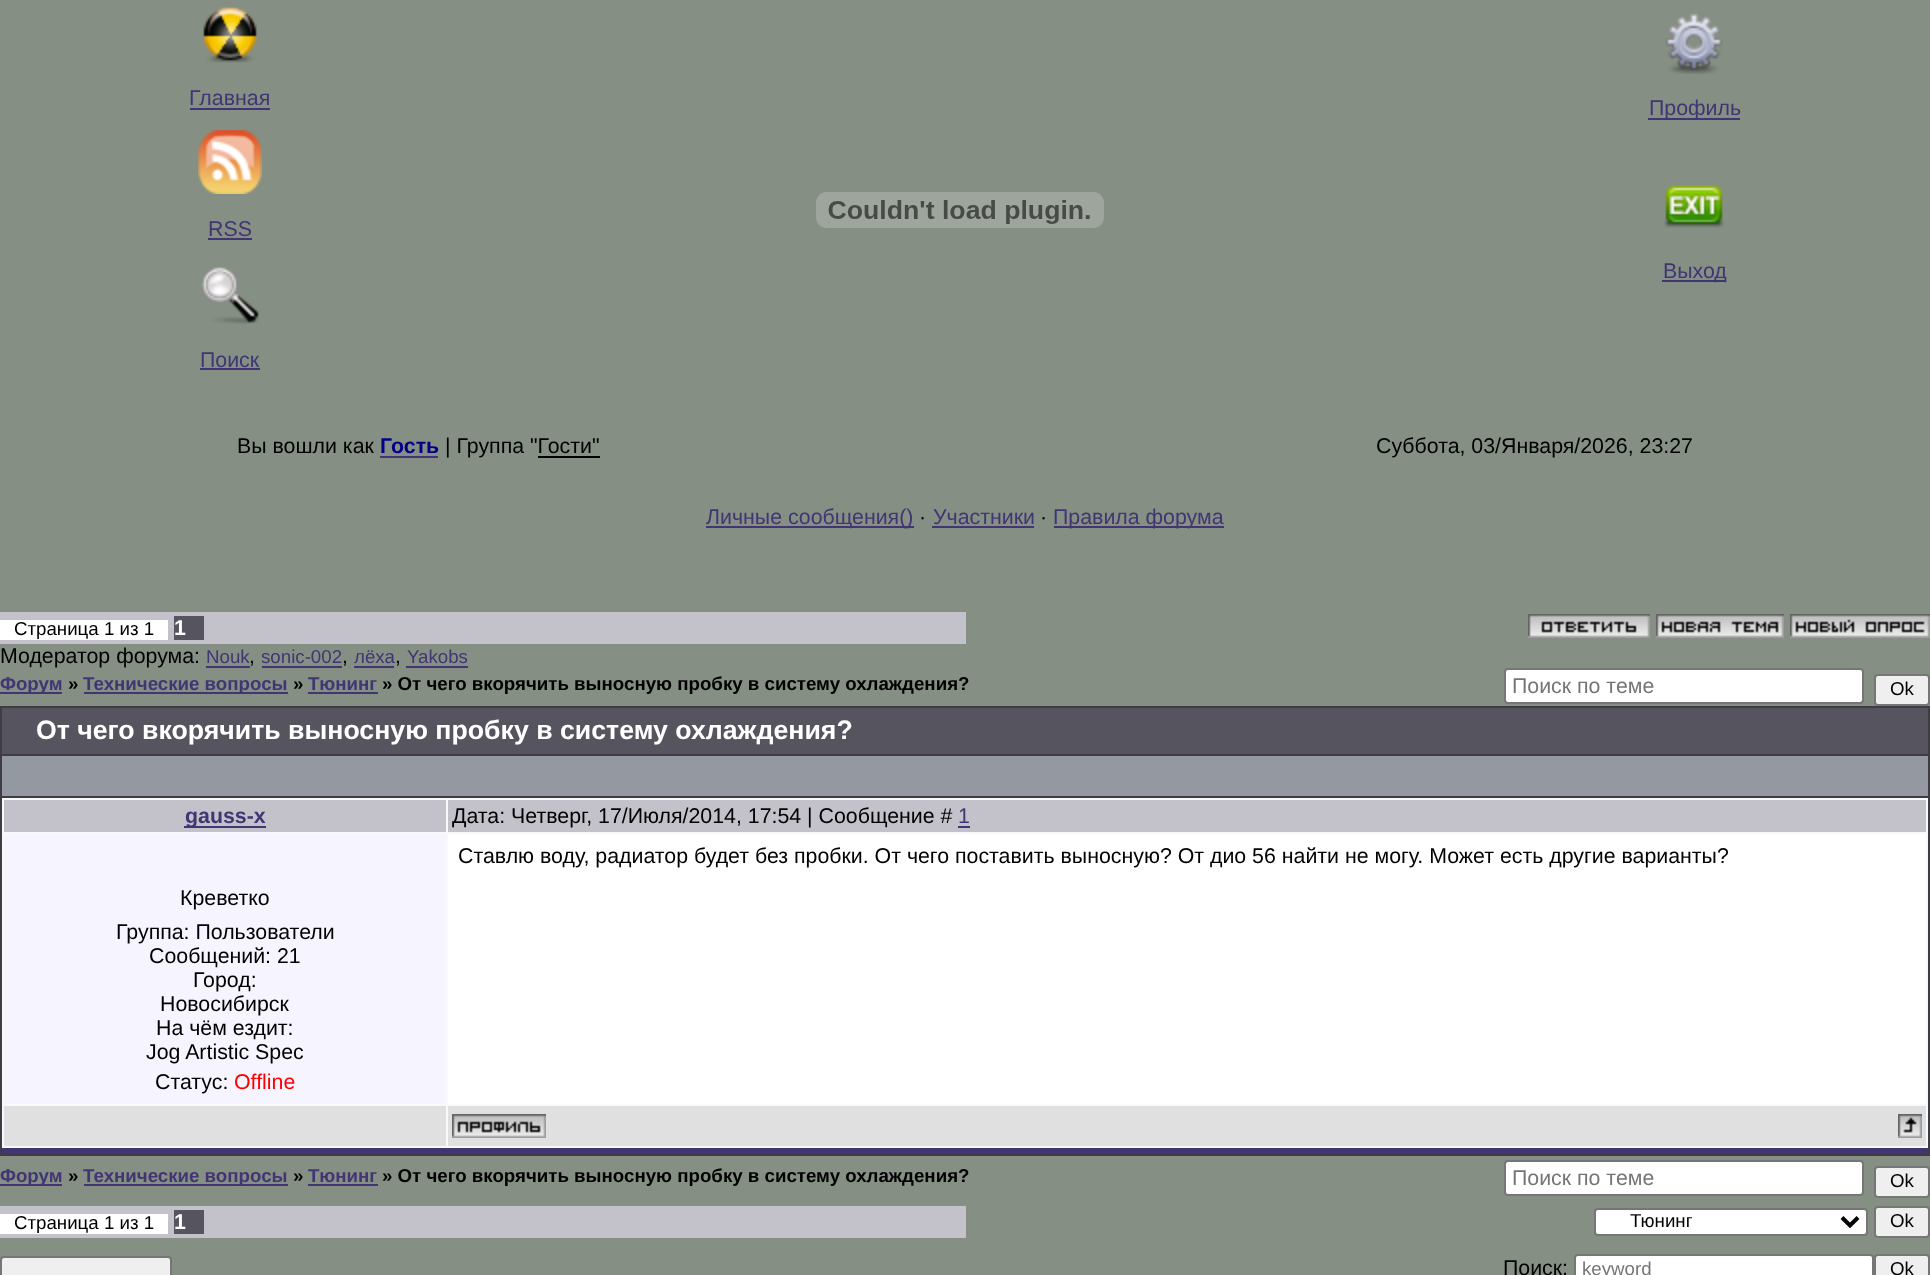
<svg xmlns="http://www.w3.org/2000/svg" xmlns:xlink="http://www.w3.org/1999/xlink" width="1930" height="1275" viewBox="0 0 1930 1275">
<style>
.cls-1{font:21.33px Liberation Sans;fill:#413574}
.cls-2{font:21.33px Liberation Sans;fill:#000000}
.cls-3{font:bold 21.33px Liberation Sans;fill:#00008b}
.cls-4{font:18.7px Liberation Sans;fill:#000000}
.cls-5{font:bold 21.33px Liberation Sans;fill:#ffffff}
.cls-6{font:18.7px Liberation Sans;fill:#413574}
.cls-7{font:bold 18.7px Liberation Sans;fill:#413574}
.cls-8{font:bold 18.7px Liberation Sans;fill:#000000}
.cls-9{font:21.33px Liberation Sans;fill:#757575}
.cls-10{font:bold 26.7px Liberation Sans;fill:#ffffff}
.cls-11{font:bold 21.33px Liberation Sans;fill:#413574}
.cls-12{font:21.33px Liberation Sans;fill:#ff0000}
.cls-13{font:18.7px Liberation Sans;fill:#757575}
</style>
<rect width="100%" height="100%" fill="#858f84"/>
<image xlink:href="image0.png" x="203" y="7" width="54" height="56"/>
<rect fill="#413574" x="190" y="108" width="80" height="2"/>
<image xlink:href="image1.png" x="198" y="130" width="64" height="64"/>
<rect fill="#413574" x="208" y="238" width="44" height="2"/>
<image xlink:href="image2.png" x="201" y="267" width="58" height="57"/>
<rect fill="#413574" x="200" y="368" width="60" height="2"/>
<image xlink:href="image3.png" x="816" y="192" width="288" height="36"/>
<image xlink:href="image4.png" x="1665" y="13" width="58" height="61"/>
<rect fill="#413574" x="1648" y="118" width="92" height="2"/>
<image xlink:href="image5.png" x="1664" y="185" width="60" height="43"/>
<rect fill="#413574" x="1662" y="280" width="64" height="2"/>
<rect fill="#413574" x="380" y="456" width="58" height="2"/>
<rect fill="#000000" x="538" y="456" width="62" height="2"/>
<rect fill="#413574" x="706" y="526" width="208" height="2"/>
<rect fill="#413574" x="932" y="526" width="102" height="2"/>
<rect fill="#413574" x="1054" y="526" width="170" height="2"/>
<rect fill="#c3c1ca" x="0" y="612" width="966" height="32"/>
<rect fill="#ffffff" x="0" y="620" width="168" height="20"/>
<rect fill="#56545f" x="174" y="616" width="30" height="24"/>
<image xlink:href="image6.png" x="1528" y="614" width="122" height="24"/>
<image xlink:href="image7.png" x="1656" y="614" width="128" height="24"/>
<image xlink:href="image8.png" x="1790" y="614" width="140" height="24"/>
<rect fill="#413574" x="206" y="666" width="44" height="2"/>
<rect fill="#413574" x="262" y="666" width="80" height="2"/>
<rect fill="#413574" x="354" y="666" width="40" height="2"/>
<rect fill="#413574" x="406" y="666" width="62" height="2"/>
<rect fill="#413574" x="0" y="692" width="62" height="2"/>
<rect fill="#413574" x="84" y="692" width="204" height="2"/>
<rect fill="#413574" x="308" y="692" width="70" height="2"/>
<rect fill="#ffffff" stroke="#767676" stroke-width="2" x="1505" y="669" width="358" height="34" rx="3"/>
<rect fill="#efefef" stroke="#767676" stroke-width="2" x="1875" y="675" width="54" height="30" rx="3"/>
<rect fill="#3f3d43" x="0" y="706" width="1930" height="450"/>
<rect fill="#56545f" x="2" y="708" width="1926" height="46"/>
<rect fill="#9498a0" x="2" y="756" width="1926" height="40"/>
<rect fill="#f8f9fa" x="2" y="798" width="1926" height="350"/>
<rect fill="#413574" x="2" y="1148" width="1926" height="6"/>
<rect fill="#c3c1ca" x="4" y="800" width="442" height="32"/>
<rect fill="#413574" x="184" y="826" width="82" height="2"/>
<rect fill="#c3c1ca" x="448" y="800" width="1478" height="32"/>
<rect fill="#413574" x="958" y="826" width="12" height="2"/>
<rect fill="#ffffff" x="448" y="834" width="1478" height="270"/>
<rect fill="#f6f4ff" x="4" y="834" width="442" height="270"/>
<rect fill="#e0e0e0" x="4" y="1106" width="442" height="40"/>
<rect fill="#e0e0e0" x="448" y="1106" width="1478" height="40"/>
<image xlink:href="image9.png" x="452" y="1114" width="94" height="24"/>
<image xlink:href="image10.png" x="1898" y="1114" width="24" height="24"/>
<rect fill="#413574" x="0" y="1184" width="62" height="2"/>
<rect fill="#413574" x="84" y="1184" width="204" height="2"/>
<rect fill="#413574" x="308" y="1184" width="70" height="2"/>
<rect fill="#ffffff" stroke="#767676" stroke-width="2" x="1505" y="1161" width="358" height="34" rx="3"/>
<rect fill="#efefef" stroke="#767676" stroke-width="2" x="1875" y="1167" width="54" height="30" rx="3"/>
<rect fill="#c3c1ca" x="0" y="1206" width="966" height="32"/>
<rect fill="#ffffff" x="0" y="1214" width="168" height="20"/>
<rect fill="#56545f" x="174" y="1210" width="30" height="24"/>
<rect fill="#ffffff" stroke="#767676" stroke-width="2" x="1595" y="1209" width="272" height="26" rx="3"/>
<path fill="none" stroke="#000000" stroke-width="4" d="M1842 1217.5L1850 1225.5L1858 1217.5"/>
<rect fill="#efefef" stroke="#767676" stroke-width="2" x="1875" y="1207" width="54" height="30" rx="3"/>
<rect fill="#efefef" stroke="#767676" stroke-width="2" x="1" y="1257" width="170" height="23" rx="3"/>
<rect fill="#ffffff" stroke="#767676" stroke-width="2" x="1575" y="1255" width="298" height="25" rx="3"/>
<rect fill="#efefef" stroke="#767676" stroke-width="2" x="1875" y="1255" width="54" height="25" rx="3"/>
<text class="cls-1" x="189" y="105">Главная</text>
<text class="cls-1" x="208" y="236">RSS</text>
<text class="cls-1" x="200" y="367">Поиск</text>
<text class="cls-1" x="1649" y="115">Профиль</text>
<text class="cls-1" x="1663" y="278">Выход</text>
<text class="cls-2" x="237" y="453">Вы вошли как</text>
<text class="cls-3" x="380" y="453">Гость</text>
<text class="cls-2" x="445" y="453">| Группа "Гости"</text>
<text class="cls-2" x="1376" y="453">Суббота, 03/Января/2026, 23:27</text>
<text class="cls-1" x="706" y="524">Личные сообщения()</text>
<text class="cls-2" x="919" y="524">·</text>
<text class="cls-1" x="933" y="524">Участники</text>
<text class="cls-2" x="1040" y="524">·</text>
<text class="cls-1" x="1053" y="524">Правила форума</text>
<text class="cls-4" x="14" y="635">Страница 1 из 1</text>
<text class="cls-5" x="174" y="635">1</text>
<text class="cls-2" x="0" y="663">Модератор форума:</text>
<text class="cls-6" x="206" y="663">Nouk</text>
<text class="cls-2" x="249" y="663">,</text>
<text class="cls-6" x="261" y="663">sonic-002</text>
<text class="cls-2" x="342" y="663">,</text>
<text class="cls-6" x="354" y="663">лёха</text>
<text class="cls-2" x="395" y="663">,</text>
<text class="cls-6" x="407" y="663">Yakobs</text>
<text class="cls-7" x="0" y="690">Форум</text>
<text class="cls-8" x="68" y="690">»</text>
<text class="cls-7" x="83" y="690">Технические вопросы</text>
<text class="cls-8" x="293" y="690">»</text>
<text class="cls-7" x="308" y="690">Тюнинг</text>
<text class="cls-8" x="382" y="690">» От чего вкорячить выносную пробку в систему охлаждения?</text>
<text class="cls-9" x="1512" y="693">Поиск по теме</text>
<text class="cls-4" x="1890" y="695">Ok</text>
<text class="cls-10" x="36" y="739">От чего вкорячить выносную пробку в систему охлаждения?</text>
<text class="cls-11" x="185" y="823">gauss-x</text>
<text class="cls-2" x="452" y="823">Дата: Четверг, 17/Июля/2014, 17:54 | Сообщение #</text>
<text class="cls-1" x="958" y="823">1</text>
<text class="cls-2" x="458" y="863">Ставлю воду, радиатор будет без пробки. От чего поставить выносную? От дио 56 найти не могу. Может есть другие варианты?</text>
<text class="cls-2" x="180" y="905">Креветко</text>
<text class="cls-2" x="116" y="939">Группа: Пользователи</text>
<text class="cls-2" x="149" y="963">Сообщений: 21</text>
<text class="cls-2" x="193" y="987">Город:</text>
<text class="cls-2" x="160" y="1011">Новосибирск</text>
<text class="cls-2" x="156" y="1035">На чём ездит:</text>
<text class="cls-2" x="146" y="1059">Jog Artistic Spec</text>
<text class="cls-2" x="155" y="1089">Статус:</text>
<text class="cls-12" x="234" y="1089">Offline</text>
<text class="cls-7" x="0" y="1182">Форум</text>
<text class="cls-8" x="68" y="1182">»</text>
<text class="cls-7" x="83" y="1182">Технические вопросы</text>
<text class="cls-8" x="293" y="1182">»</text>
<text class="cls-7" x="308" y="1182">Тюнинг</text>
<text class="cls-8" x="382" y="1182">» От чего вкорячить выносную пробку в систему охлаждения?</text>
<text class="cls-9" x="1512" y="1185">Поиск по теме</text>
<text class="cls-4" x="1890" y="1187">Ok</text>
<text class="cls-4" x="14" y="1229">Страница 1 из 1</text>
<text class="cls-5" x="174" y="1229">1</text>
<text class="cls-4" x="1630" y="1227">Тюнинг</text>
<text class="cls-4" x="1890" y="1227">Ok</text>
<text class="cls-2" x="1503" y="1275">Поиск:</text>
<text class="cls-13" x="1582" y="1275">keyword</text>
<text class="cls-4" x="1890" y="1275">Ok</text>
</svg>
